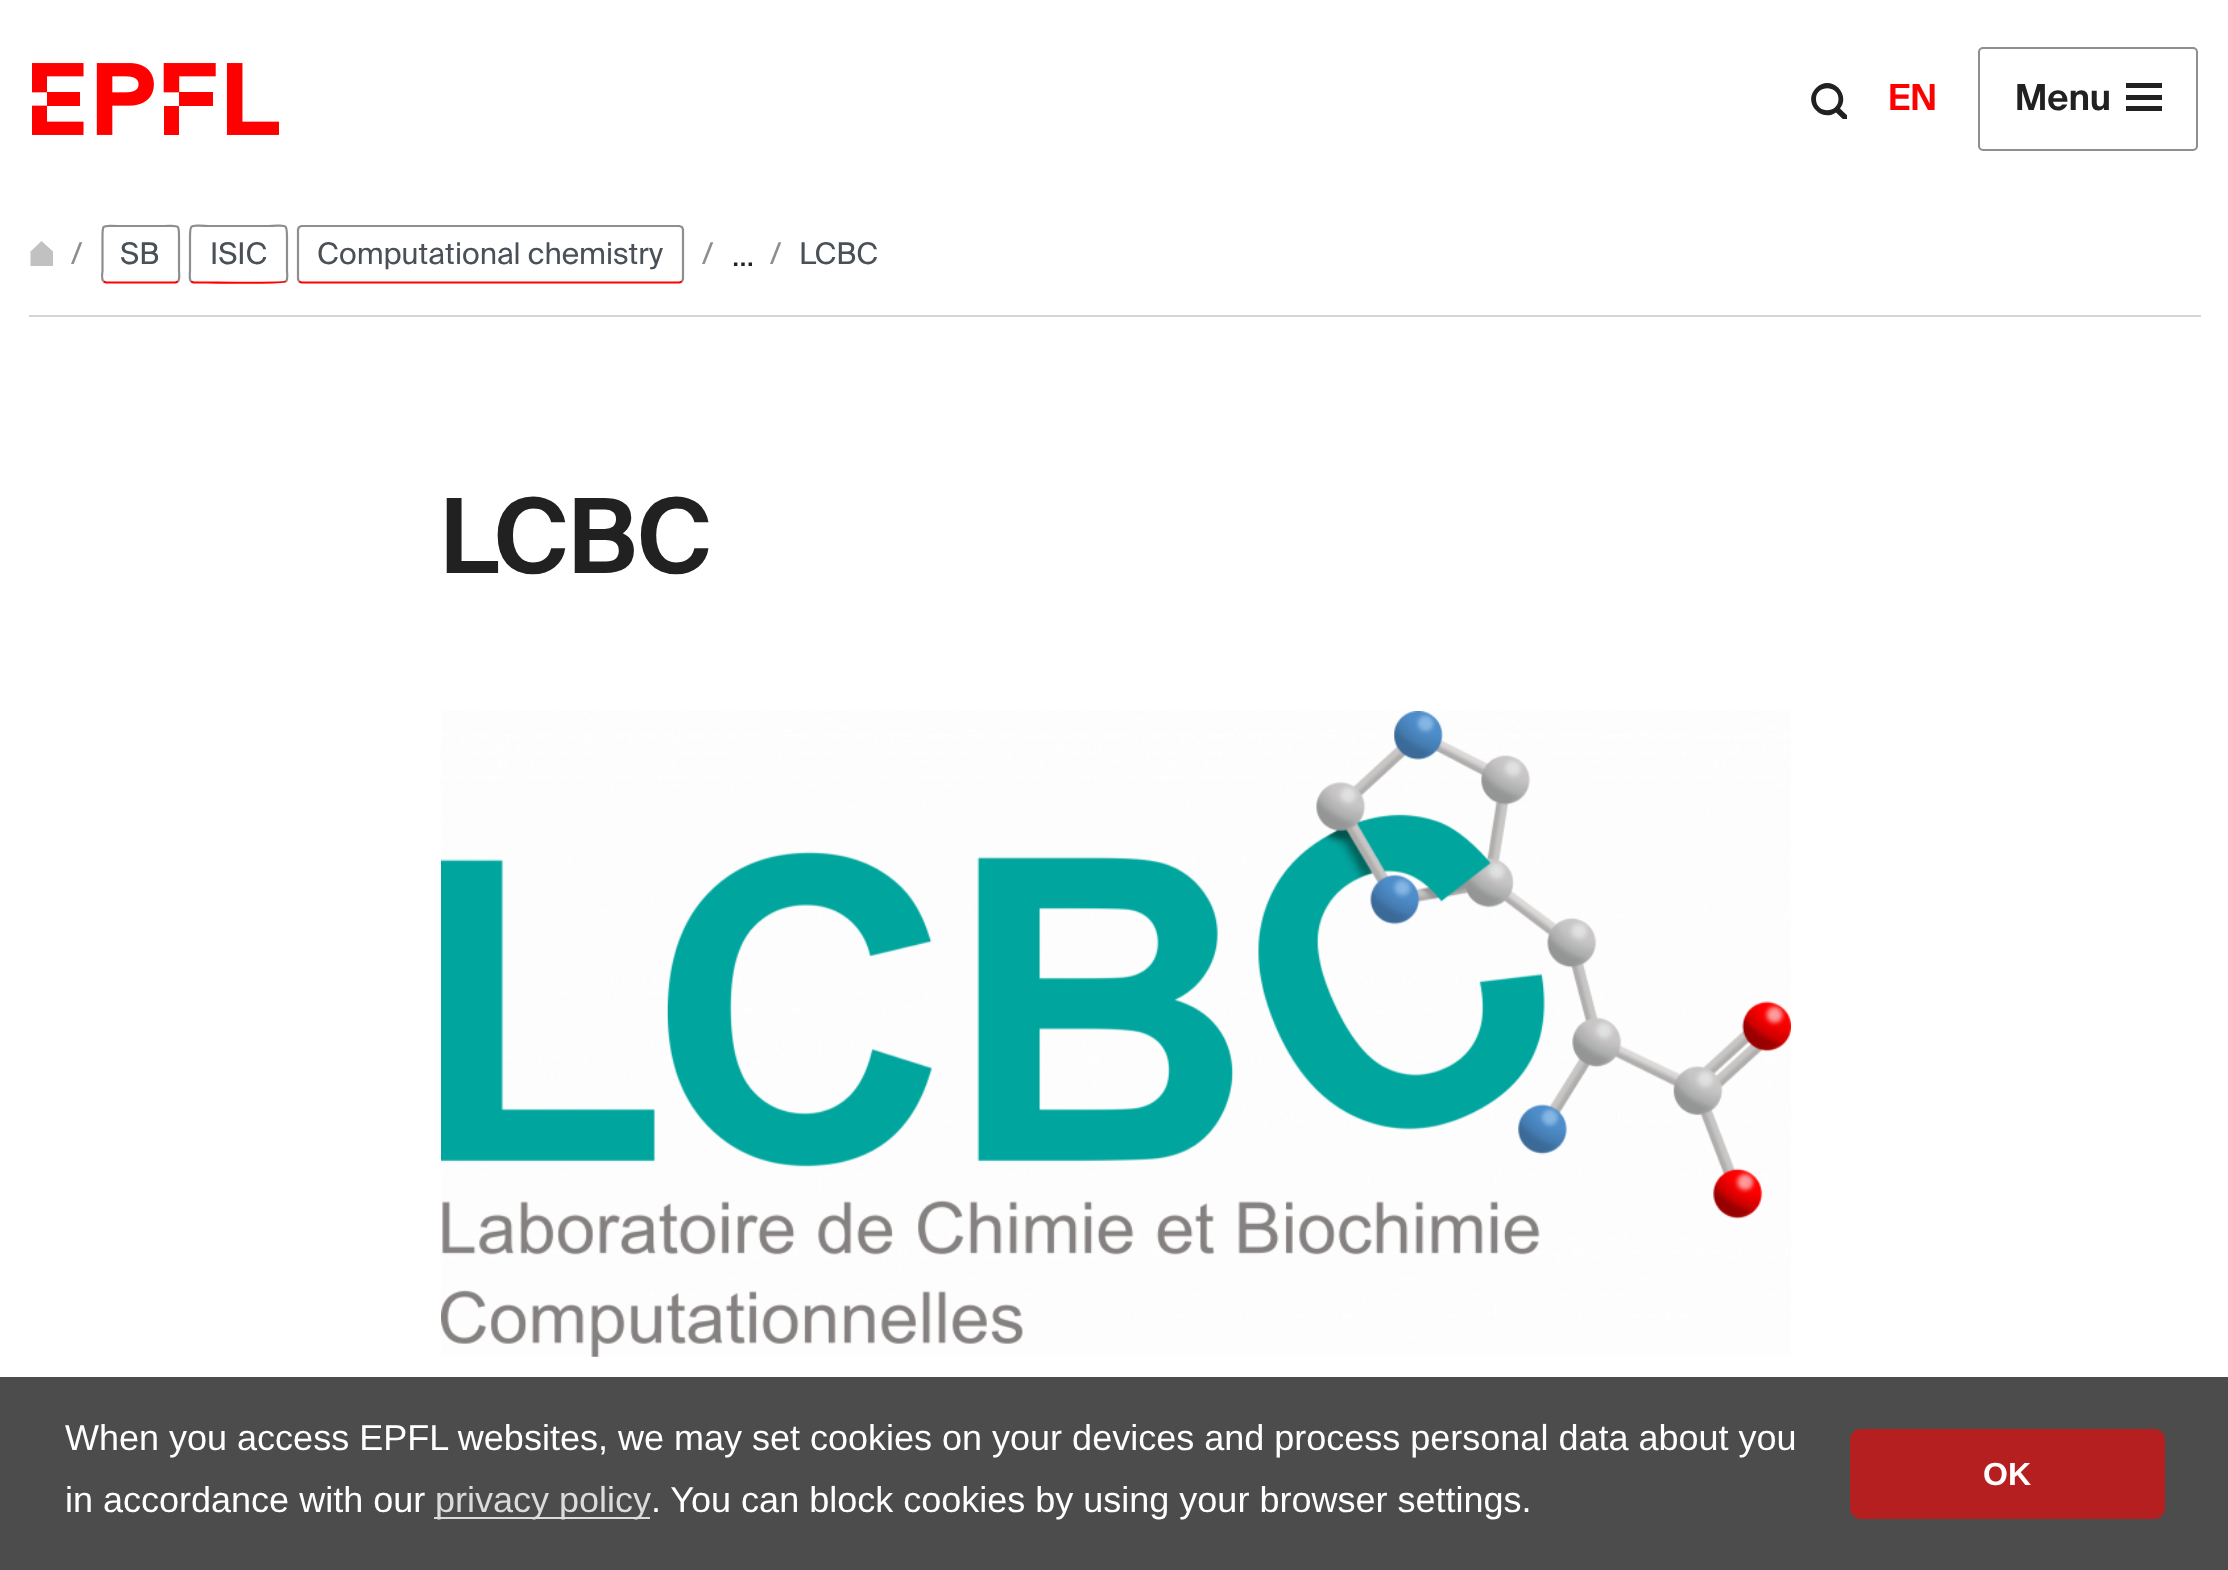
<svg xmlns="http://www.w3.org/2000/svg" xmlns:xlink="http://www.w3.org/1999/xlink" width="2228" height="1570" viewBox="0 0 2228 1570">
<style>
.cls-1{font:600 36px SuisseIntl;fill:#ff0000}
.cls-2{font:600 36px SuisseIntl;fill:#212121}
.cls-3{font:29.9px SuisseIntl;fill:#8e8e8e}
.cls-4{font:29.9px SuisseIntl;fill:#495057}
.cls-5{font:29.9px SuisseIntl;fill:#212121}
.cls-6{font:600 103.5px SuisseIntl;fill:#212121}
.cls-7{font:36px Liberation Sans;fill:#ffffff}
.cls-8{font:36px Liberation Sans;fill:#dbdbdb}
.cls-9{font:bold 32px Liberation Sans;fill:#ffffff}
</style>
<defs>
<clipPath id="clip1"><rect x="1811" y="83" width="36" height="36"/></clipPath>
<clipPath id="clip2"><rect x="29" y="241" width="25" height="25"/></clipPath>
</defs>
<rect width="100%" height="100%" fill="#ffffff"/>
<rect fill="#4c4c4c" x="0" y="1377" width="2228" height="193"/>
<image xlink:href="image0.png" x="32" y="63" width="247" height="72"/>
<g clip-path="url(#clip1)">
<path fill="#212121" d="M1850.5 118.5L1840 108.5C1851.5 93 1830 74 1816 88C1802 102 1821 123 1836 112.5L1846.5 122.5ZM1816 99C1816 84.5 1838.5 84.5 1838.5 99C1838.5 114 1816 114 1816 99Z"/>
</g>
<rect fill="none" stroke="#8e8e8e" stroke-width="2" x="1979" y="48" width="218" height="102" rx="4"/>
<rect fill="#212121" x="2126" y="83" width="36" height="5"/>
<rect fill="#212121" x="2126" y="95" width="36" height="5"/>
<rect fill="#212121" x="2126" y="106" width="36" height="5"/>
<rect fill="#d5d5d5" x="29" y="315" width="2172" height="2"/>
<g clip-path="url(#clip2)">
<path fill="#c1c1c1" fill-rule="evenodd" d="M30.5 251.5L41.5 241L53 251.5V266.5H30.5Z"/>
</g>
<path fill="none" stroke="#ff0000" stroke-width="2.2" d="M178 281.5L175.5 282.5H106L103.5 281.5"/>
<path fill="none" stroke="#8e8e8e" stroke-width="2.2" d="M103.5 281.5C101 279 102.5 271.5 102.5 271V238C102.5 223.5 102 226 117.5 226H164C179.5 226 179 223.5 179 238V271C179 271.5 180 279 178 281.5"/>
<path fill="none" stroke="#ff0000" stroke-width="2.2" d="M286 281.5H285.5C283.5 283.5 217 282.5 208.5 282.5H193.5L191 281.5"/>
<path fill="none" stroke="#8e8e8e" stroke-width="2.2" d="M191 281.5C189 279 190 271.5 190 271V238C190 222 190.5 226 208.5 226H268.5C286.5 226 287 222 287 238V271C287 271.5 288 279 286 281.5"/>
<path fill="none" stroke="#ff0000" stroke-width="2.2" d="M682 281.5L679.5 282.5H301.5L299 281.5"/>
<path fill="none" stroke="#8e8e8e" stroke-width="2.2" d="M299 281.5L298 279V229.5L299 227L301.5 226H679.5L682 227L683 229.5V279L682 281.5"/>
<image xlink:href="image1.png" x="441" y="711" width="1350" height="646"/>
<rect fill="#dbdbdb" x="434" y="1517" width="216" height="2"/>
<rect fill="#b51f1f" x="1850" y="1429" width="315" height="90" rx="11"/>
<text class="cls-1" x="1888" y="110">EN</text>
<text class="cls-2" x="2015" y="110">Menu</text>
<text class="cls-3" x="71" y="264">/</text>
<text class="cls-4" x="120" y="264">SB</text>
<text class="cls-4" x="210" y="264">ISIC</text>
<text class="cls-4" x="317" y="264">Computational chemistry</text>
<text class="cls-3" x="702" y="264">/</text>
<text class="cls-5" x="732" y="266">…</text>
<text class="cls-3" x="770" y="264">/</text>
<text class="cls-4" x="799" y="264">LCBC</text>
<text class="cls-6" x="440" y="573">LCBC</text>
<text class="cls-7"><tspan x="65" y="1450">When you access EPFL websites, we may set cookies on your devices and process personal data about you</tspan><tspan x="65" y="1512">in accordance with our</tspan></text>
<text class="cls-8" x="435" y="1512">privacy policy</text>
<text class="cls-7" x="651" y="1512">. You can block cookies by using your browser settings.</text>
<text class="cls-9" x="1983" y="1485">OK</text>
</svg>
